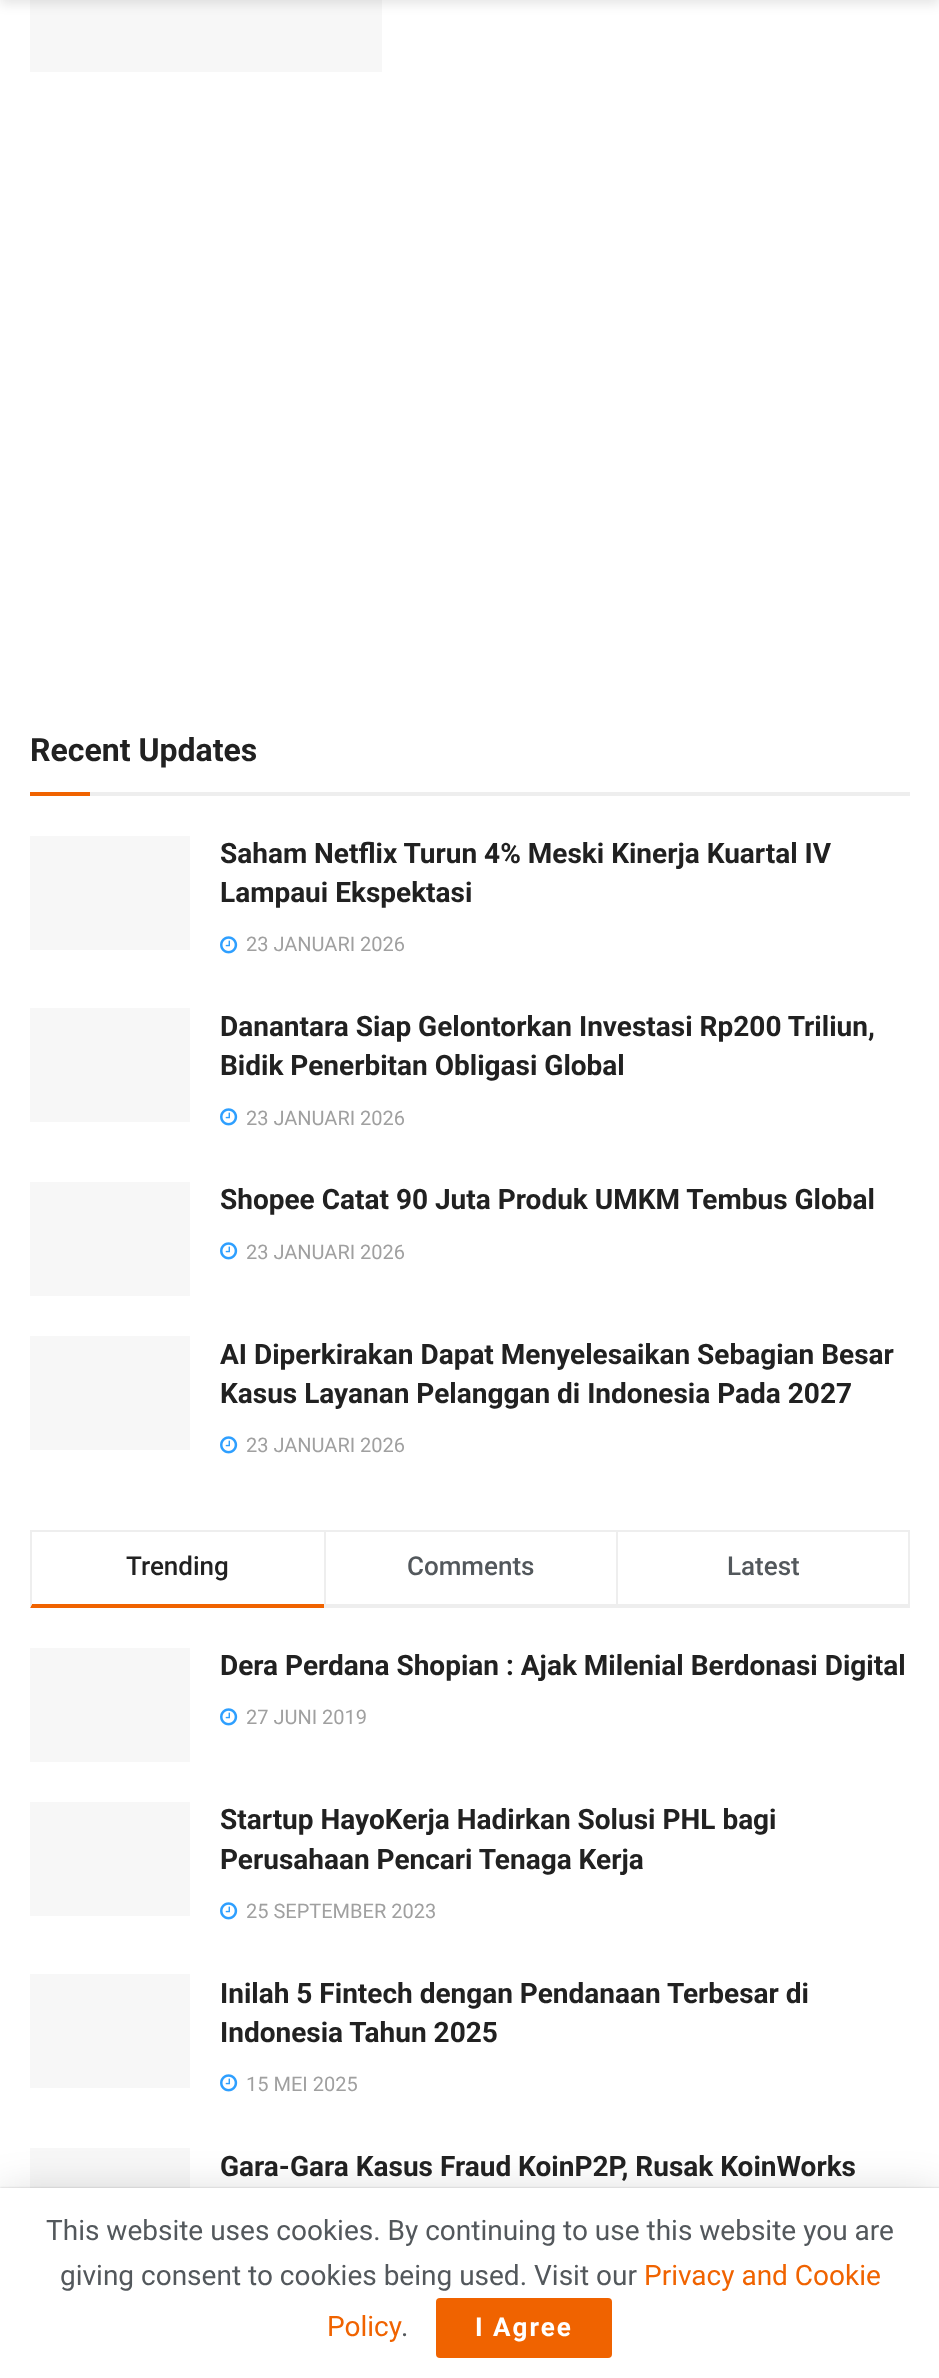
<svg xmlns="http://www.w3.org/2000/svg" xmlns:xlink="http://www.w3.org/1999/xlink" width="939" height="2378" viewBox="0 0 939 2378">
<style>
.cls-1{font:bold 32px Roboto;fill:#212121}
.cls-2{font:bold 28px Roboto;fill:#212121}
.cls-3{font:20px Roboto;fill:#a0a0a0}
.cls-4{font:500 26px Roboto;fill:#212121}
.cls-5{font:500 26px Roboto;fill:#53585c}
.cls-6{font:28px Roboto;fill:#53585c}
.cls-7{font:28px Roboto;fill:#f06300}
.cls-8{font:bold 26px Roboto;letter-spacing:2px;fill:#ffffff}
</style>
<rect width="100%" height="100%" fill="#ffffff"/>
<rect fill="#f7f7f7" x="30" y="0" width="352" height="72"/>
<rect fill="#000000" fill-opacity="0.1" filter="blur(6px)" x="0" y="-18" width="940" height="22"/>
<rect fill="#eeeeee" x="90" y="792" width="820" height="4"/>
<rect fill="#f06300" x="30" y="792" width="60" height="4"/>
<rect fill="#f7f7f7" x="30" y="836" width="160" height="114"/>
<image xlink:href="image0.png" x="220" y="936" width="18" height="18"/>
<rect fill="#f7f7f7" x="30" y="1008" width="160" height="114"/>
<image xlink:href="image0.png" x="220" y="1108" width="18" height="18"/>
<rect fill="#f7f7f7" x="30" y="1182" width="160" height="114"/>
<image xlink:href="image0.png" x="220" y="1242" width="18" height="18"/>
<rect fill="#f7f7f7" x="30" y="1336" width="160" height="114"/>
<image xlink:href="image0.png" x="220" y="1436" width="18" height="18"/>
<rect fill="#eeeeee" x="30" y="1530" width="880" height="2"/>
<path fill="#f06300" d="M324 1608H30L32 1604H324Z"/>
<path fill="#eeeeee" d="M30 1608V1530L32 1532V1604Z"/>
<rect fill="#eeeeee" x="324" y="1604" width="292" height="4"/>
<rect fill="#eeeeee" x="324" y="1530" width="2" height="78"/>
<rect fill="#eeeeee" x="908" y="1530" width="2" height="78"/>
<rect fill="#eeeeee" x="616" y="1604" width="294" height="4"/>
<rect fill="#eeeeee" x="616" y="1530" width="2" height="78"/>
<rect fill="#f7f7f7" x="30" y="1648" width="160" height="114"/>
<image xlink:href="image0.png" x="220" y="1708" width="18" height="18"/>
<rect fill="#f7f7f7" x="30" y="1802" width="160" height="114"/>
<image xlink:href="image0.png" x="220" y="1902" width="18" height="18"/>
<rect fill="#f7f7f7" x="30" y="1974" width="160" height="114"/>
<image xlink:href="image0.png" x="220" y="2074" width="18" height="18"/>
<rect fill="#f7f7f7" x="30" y="2148" width="160" height="40"/>
<rect fill="#000000" fill-opacity="0.15" filter="blur(20px)" x="0" y="2192" width="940" height="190"/>
<rect fill="#000000" fill-opacity="0.2" filter="blur(1px)" x="0" y="2188" width="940" height="190"/>
<rect fill="#ffffff" x="0" y="2188" width="939" height="190"/>
<rect fill="#f06300" x="436" y="2298" width="176" height="60" rx="4"/>
<text class="cls-1" x="30" y="761">Recent Updates</text>
<text class="cls-2"><tspan x="220" y="863">Saham Netflix Turun 4% Meski Kinerja Kuartal IV</tspan><tspan x="220" y="902">Lampaui Ekspektasi</tspan></text>
<text class="cls-3" x="246" y="951">23 JANUARI 2026</text>
<text class="cls-2"><tspan x="220" y="1036">Danantara Siap Gelontorkan Investasi Rp200 Triliun,</tspan><tspan x="220" y="1075">Bidik Penerbitan Obligasi Global</tspan></text>
<text class="cls-3" x="246" y="1125">23 JANUARI 2026</text>
<text class="cls-2" x="220" y="1209">Shopee Catat 90 Juta Produk UMKM Tembus Global</text>
<text class="cls-3" x="246" y="1259">23 JANUARI 2026</text>
<text class="cls-2"><tspan x="220" y="1364">AI Diperkirakan Dapat Menyelesaikan Sebagian Besar</tspan><tspan x="220" y="1403">Kasus Layanan Pelanggan di Indonesia Pada 2027</tspan></text>
<text class="cls-3" x="246" y="1452">23 JANUARI 2026</text>
<text class="cls-4" x="126" y="1575">Trending</text>
<text class="cls-5" x="407" y="1575">Comments</text>
<text class="cls-5" x="727" y="1575">Latest</text>
<text class="cls-2" x="220" y="1675">Dera Perdana Shopian : Ajak Milenial Berdonasi Digital</text>
<text class="cls-3" x="246" y="1724">27 JUNI 2019</text>
<text class="cls-2"><tspan x="220" y="1829">Startup HayoKerja Hadirkan Solusi PHL bagi</tspan><tspan x="220" y="1869">Perusahaan Pencari Tenaga Kerja</tspan></text>
<text class="cls-3" x="246" y="1918">25 SEPTEMBER 2023</text>
<text class="cls-2"><tspan x="220" y="2003">Inilah 5 Fintech dengan Pendanaan Terbesar di</tspan><tspan x="220" y="2042">Indonesia Tahun 2025</tspan></text>
<text class="cls-3" x="246" y="2091">15 MEI 2025</text>
<text class="cls-2" x="220" y="2176">Gara-Gara Kasus Fraud KoinP2P, Rusak KoinWorks</text>
<text class="cls-6" x="46" y="2240">This website uses cookies. By continuing to use this website you are</text>
<text class="cls-6" x="60" y="2285">giving consent to cookies being used. Visit our</text>
<text class="cls-7" x="644" y="2285">Privacy and Cookie</text>
<text class="cls-7" x="327" y="2336">Policy</text>
<text class="cls-6" x="401" y="2336">.</text>
<text class="cls-8" x="475" y="2336">I Agree</text>
</svg>
